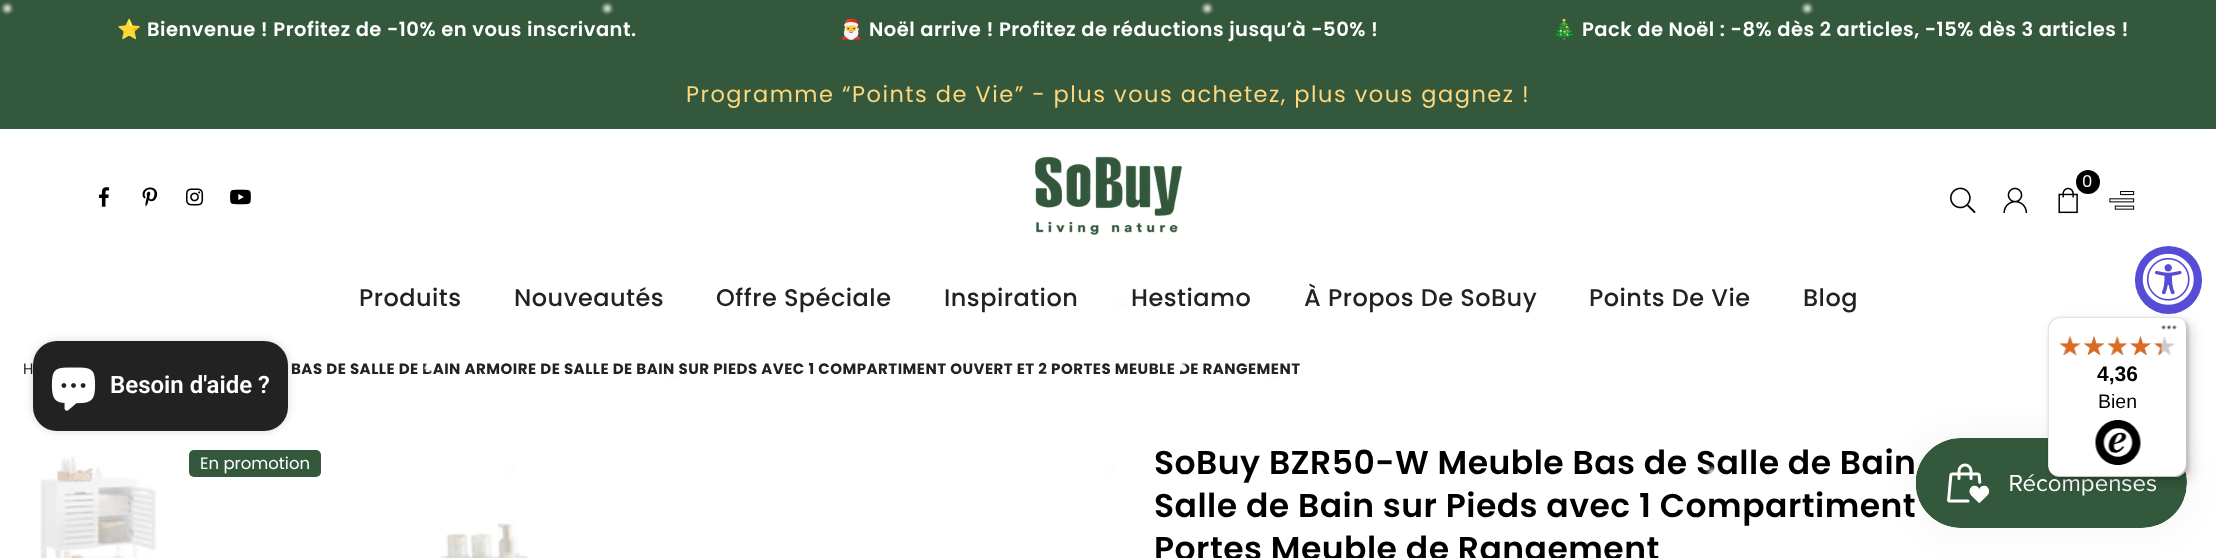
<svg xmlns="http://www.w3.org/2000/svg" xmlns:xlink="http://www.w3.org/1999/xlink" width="2216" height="558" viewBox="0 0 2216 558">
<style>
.cls-1{font:bold 19.5px Noto Color Emoji;letter-spacing:0.48px;fill:#ffffff}
.cls-2{font:600 19.5px Poppins;letter-spacing:0.48px;fill:#ffffff}
.cls-3{font:16.5px Poppins;letter-spacing:0.48px;fill:#ffffff}
.cls-4{font:15px Poppins;letter-spacing:0.48px;fill:#222222}
.cls-5{font:bold 15px Poppins;letter-spacing:0.48px;fill:#222222}
.cls-6{font:600 33px Poppins;letter-spacing:0.48px;fill:#000000}
.cls-7{font:500 24px Poppins;letter-spacing:0.48px;fill:#222222}
.cls-8{font:16.5px Poppins;fill:#ffffff}
.cls-9{font:22.5px Poppins;letter-spacing:1.5px;fill:#fed67b}
.cls-10{font:bold 21px Liberation Sans;fill:#000000}
.cls-11{font:19.5px Liberation Sans;fill:#000000}
.cls-12{font:600 24px Roboto;fill:#ffffff}
</style>
<rect width="100%" height="100%" fill="#ffffff"/>
<rect fill="#33583b" x="0" y="0" width="2216" height="62"/>
<image xlink:href="image2.png" x="2058" y="187" width="20" height="27"/>
<circle fill="#000000" cx="2088" cy="182" r="12"/>
<image xlink:href="image3.png" x="1950" y="187" width="26" height="26"/>
<image xlink:href="image4.png" x="2003" y="187" width="25" height="26"/>
<image xlink:href="image5.png" x="2109" y="191" width="26" height="19"/>
<rect fill="#574cd5" x="2135" y="246" width="67" height="68" rx="33.5"/>
<image xlink:href="image10.png" x="2142" y="253" width="52" height="52"/>
<image xlink:href="image11.png" x="40" y="456" width="117" height="102"/>
<image xlink:href="image12.png" x="440" y="520" width="89" height="38"/>
<rect fill="#000000" fill-opacity="0.05" filter="blur(19px)" x="1916" y="438" width="271" height="90" rx="45"/>
<image xlink:href="image26.png" x="1915" y="438" width="272" height="90"/>
<rect fill="#000000" fill-opacity="0.15" filter="blur(6px)" x="2052" y="321" width="140" height="161" rx="12"/>
<rect fill="#000000" fill-opacity="0.15" filter="blur(1.5px)" x="2049" y="318" width="140" height="161" rx="12"/>
<rect fill="#ffffff" x="2048" y="317" width="139" height="160" rx="12"/>
<path fill="#000000" fill-opacity="0.1" d="M2061 318H2176C2179 318 2181 319 2183 320C2181 318 2178 317 2175 317H2060C2053 317 2048 322 2048 329V465C2048 468 2049 471 2051 473C2050 471 2049 469 2049 466V330C2049 323 2054 318 2061 318Z"/>
<path fill="#000000" fill-opacity="0.2" d="M2054 475C2055 476 2058 477 2060 477H2175C2182 477 2187 472 2187 465V329C2187 327 2186 324 2185 323L2186 327V464C2186 470 2180 476 2174 476H2058Z"/>
<path fill="#323232" fill-opacity="0.2" d="M2052 474C2054 476 2057 477 2060 477H2175C2182 477 2187 472 2187 465V329C2187 326 2186 323 2184 321C2185 323 2186 325 2186 328V464C2186 471 2181 476 2174 476H2059C2056 476 2054 475 2052 474Z"/>
<path fill="#ffffff" fill-opacity="0.3" d="M2052 474C2054 476 2057 477 2060 477H2175C2182 477 2187 472 2187 465V329C2187 326 2186 323 2184 321C2185 323 2186 325 2186 328V464C2186 471 2181 476 2174 476H2059C2056 476 2054 475 2052 474Z"/>
<image xlink:href="image13.png" x="2161" y="325" width="16" height="5"/>
<image xlink:href="image14.png" x="2059" y="336" width="22" height="20"/>
<image xlink:href="image15.png" x="2084" y="336" width="20" height="19"/>
<image xlink:href="image16.png" x="2107" y="336" width="20" height="20"/>
<image xlink:href="image17.png" x="2130" y="336" width="21" height="19"/>
<image xlink:href="image18.png" x="2154" y="336" width="21" height="20"/>
<image xlink:href="image19.png" x="2059" y="336" width="22" height="19"/>
<image xlink:href="image20.png" x="2084" y="336" width="20" height="20"/>
<image xlink:href="image21.png" x="2107" y="336" width="20" height="19"/>
<image xlink:href="image22.png" x="2130" y="336" width="21" height="20"/>
<image xlink:href="image23.png" x="2154" y="343" width="8" height="12"/>
<image xlink:href="image24.png" x="2095" y="420" width="46" height="45"/>
<text class="cls-1" x="117" y="36">⭐</text>
<text class="cls-2" x="147" y="36">Bienvenue ! Profitez de -10% en vous inscrivant.</text>
<text class="cls-1" x="839" y="36">🎅</text>
<text class="cls-2" x="869" y="36">Noël arrive ! Profitez de réductions jusqu’à -50% !</text>
<text class="cls-1" x="1552" y="36">🎄</text>
<text class="cls-2" x="1582" y="36">Pack de Noël : -8% dès 2 articles, -15% dès 3 articles !</text>
<text class="cls-3" x="2082" y="187">0</text>
<text class="cls-4" x="23" y="374">H</text>
<text class="cls-5" x="291" y="374">BAS DE SALLE DE BAIN ARMOIRE DE SALLE DE BAIN SUR PIEDS AVEC 1 COMPARTIMENT OUVERT ET 2 PORTES MEUBLE DE RANGEMENT</text>
<text class="cls-6" x="1154" y="474">SoBuy BZR50-W Meuble Bas de Salle de Bain</text>
<image xlink:href="image0.png" x="0" y="1" width="1814" height="473"/>
<text class="cls-7" x="1803" y="306">Blog</text>
<text class="cls-7" x="1589" y="306">Points De Vie</text>
<text class="cls-7" x="1304" y="306">À Propos De SoBuy</text>
<text class="cls-7" x="1131" y="306">Hestiamo</text>
<text class="cls-7" x="944" y="306">Inspiration</text>
<text class="cls-7" x="716" y="306">Offre Spéciale</text>
<text class="cls-7" x="514" y="306">Nouveautés</text>
<text class="cls-7" x="359" y="306">Produits</text>
<image xlink:href="image1.png" x="1035" y="156" width="147" height="79"/>
<image xlink:href="image9.png" x="230" y="189" width="21" height="16"/>
<image xlink:href="image8.png" x="186" y="188" width="18" height="18"/>
<image xlink:href="image7.png" x="142" y="187" width="16" height="20"/>
<image xlink:href="image6.png" x="99" y="187" width="11" height="20"/>
<rect fill="#33583b" x="189" y="450" width="132" height="27" rx="5"/>
<text class="cls-8" x="200" y="469">En promotion</text>
<rect fill="#33583b" x="0" y="62" width="2216" height="67"/>
<text class="cls-9" x="686" y="102">Programme “Points de Vie” - plus vous achetez, plus vous gagnez !</text>
<text class="cls-6"><tspan x="1154" y="517">Salle de Bain sur Pieds avec 1 Compartiment</tspan><tspan x="1154" y="560">Portes Meuble de Rangement</tspan></text>
<text class="cls-10" x="2097" y="381">4,36</text>
<text class="cls-11" x="2098" y="408">Bien</text>
<rect fill="#000000" fill-opacity="0.15" filter="blur(4px)" x="33" y="341" width="255" height="90" rx="24"/>
<rect fill="#222222" x="33" y="341" width="255" height="90" rx="24"/>
<image xlink:href="image25.png" x="51" y="367" width="45" height="44"/>
<text class="cls-12" x="110" y="393">Besoin d'aide ?</text>
</svg>
